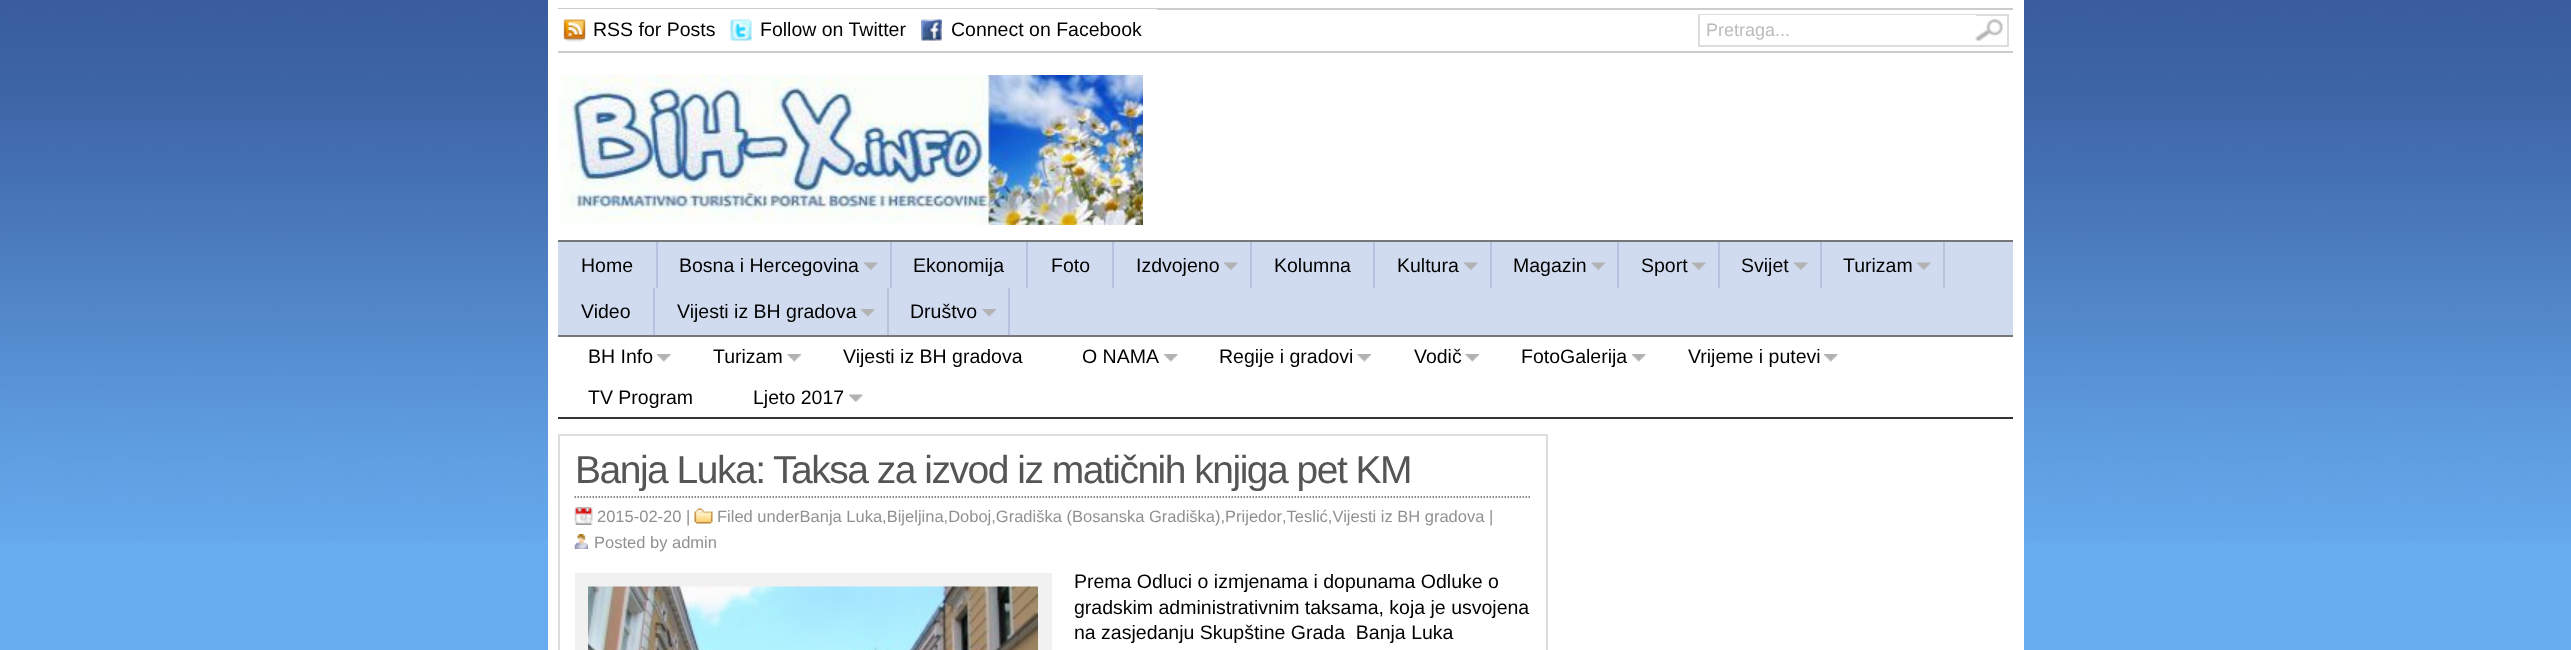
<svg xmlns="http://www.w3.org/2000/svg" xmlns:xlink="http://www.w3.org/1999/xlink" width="2571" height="650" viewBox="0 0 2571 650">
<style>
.cls-1{font:19.5px Liberation Sans;fill:#000000}
.cls-2{font:18px Liberation Sans;fill:#bcbcbc}
.cls-3{font:39px Liberation Sans;letter-spacing:-1.5px;fill:#555555}
.cls-4{font:16.5px Liberation Sans;fill:#909090}
</style>
<rect width="100%" height="100%" fill="#67acef"/>
<image xlink:href="image0.png" x="0" y="0" width="2571" height="540"/>
<rect fill="#ffffff" x="548" y="0" width="1476" height="650"/>
<rect fill="#cccccc" x="558" y="8" width="1455" height="2"/>
<rect fill="#cccccc" x="558" y="51" width="1455" height="2"/>
<rect fill="#ffffff" x="558" y="9" width="599" height="1"/>
<image xlink:href="image1.png" x="563" y="19" width="23" height="23"/>
<image xlink:href="image2.png" x="730" y="19" width="22" height="22"/>
<image xlink:href="image3.png" x="921" y="19" width="21" height="22"/>
<rect fill="none" stroke="#dddddd" stroke-width="2" x="1699" y="15" width="309" height="31"/>
<rect fill="#ffffff" x="1700" y="15" width="276" height="1"/>
<image xlink:href="image4.png" x="1975" y="19" width="28" height="22"/>
<image xlink:href="image5.png" x="558" y="75" width="585" height="150"/>
<rect fill="#d1dbef" x="558" y="242" width="1455" height="93"/>
<rect fill="#777777" x="558" y="240" width="1455" height="2"/>
<rect fill="#777777" x="558" y="335" width="1455" height="2"/>
<rect fill="#b5c3df" x="656" y="242" width="2" height="46"/>
<rect fill="#b5c3df" x="890" y="242" width="2" height="46"/>
<image xlink:href="image6.png" x="864" y="262" width="14" height="8"/>
<rect fill="#b5c3df" x="1026" y="242" width="2" height="46"/>
<rect fill="#b5c3df" x="1112" y="242" width="2" height="46"/>
<rect fill="#b5c3df" x="1250" y="242" width="2" height="46"/>
<image xlink:href="image7.png" x="1224" y="262" width="14" height="8"/>
<rect fill="#b5c3df" x="1373" y="242" width="2" height="46"/>
<rect fill="#b5c3df" x="1490" y="242" width="2" height="46"/>
<image xlink:href="image7.png" x="1464" y="262" width="14" height="8"/>
<rect fill="#b5c3df" x="1617" y="242" width="2" height="46"/>
<image xlink:href="image8.png" x="1591" y="262" width="14" height="8"/>
<rect fill="#b5c3df" x="1718" y="242" width="2" height="46"/>
<image xlink:href="image6.png" x="1692" y="262" width="14" height="8"/>
<rect fill="#b5c3df" x="1820" y="242" width="2" height="46"/>
<image xlink:href="image7.png" x="1794" y="262" width="14" height="8"/>
<rect fill="#b5c3df" x="1943" y="242" width="2" height="46"/>
<image xlink:href="image7.png" x="1917" y="262" width="14" height="8"/>
<rect fill="#b5c3df" x="653" y="288" width="2" height="47"/>
<rect fill="#b5c3df" x="887" y="288" width="2" height="47"/>
<image xlink:href="image9.png" x="861" y="309" width="14" height="8"/>
<rect fill="#b5c3df" x="1008" y="288" width="2" height="47"/>
<image xlink:href="image10.png" x="982" y="309" width="14" height="8"/>
<rect fill="#333333" x="558" y="417" width="1455" height="2"/>
<image xlink:href="image11.png" x="657" y="354" width="14" height="8"/>
<image xlink:href="image12.png" x="787" y="354" width="14" height="8"/>
<image xlink:href="image13.png" x="1164" y="354" width="14" height="8"/>
<image xlink:href="image14.png" x="1357" y="354" width="14" height="8"/>
<image xlink:href="image14.png" x="1465" y="354" width="14" height="8"/>
<image xlink:href="image11.png" x="1632" y="354" width="14" height="8"/>
<image xlink:href="image13.png" x="1824" y="354" width="14" height="8"/>
<image xlink:href="image15.png" x="849" y="394" width="14" height="8"/>
<rect fill="none" stroke="#dddddd" stroke-width="2" x="559" y="435" width="988" height="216"/>
<path fill="none" stroke="#666666" stroke-width="1.5" stroke-dasharray="1.5 1.5" d="M574.5 497H1531.5"/>
<image xlink:href="image16.png" x="574" y="507" width="19" height="18"/>
<image xlink:href="image17.png" x="694" y="508" width="19" height="16"/>
<image xlink:href="image18.png" x="574" y="534" width="14" height="15"/>
<rect fill="#f1f1f1" x="575" y="573" width="477" height="77"/>
<image xlink:href="image19.png" x="588" y="586" width="450" height="64"/>
<text class="cls-1" x="593" y="36">RSS for Posts</text>
<text class="cls-1" x="760" y="36">Follow on Twitter</text>
<text class="cls-1" x="951" y="36">Connect on Facebook</text>
<text class="cls-2" x="1706" y="36">Pretraga...</text>
<text class="cls-1" x="581" y="272">Home</text>
<text class="cls-1" x="679" y="272">Bosna i Hercegovina</text>
<text class="cls-1" x="913" y="272">Ekonomija</text>
<text class="cls-1" x="1051" y="272">Foto</text>
<text class="cls-1" x="1136" y="272">Izdvojeno</text>
<text class="cls-1" x="1274" y="272">Kolumna</text>
<text class="cls-1" x="1397" y="272">Kultura</text>
<text class="cls-1" x="1513" y="272">Magazin</text>
<text class="cls-1" x="1641" y="272">Sport</text>
<text class="cls-1" x="1741" y="272">Svijet</text>
<text class="cls-1" x="1843" y="272">Turizam</text>
<text class="cls-1" x="581" y="318">Video</text>
<text class="cls-1" x="677" y="318">Vijesti iz BH gradova</text>
<text class="cls-1" x="910" y="318">Društvo</text>
<text class="cls-1" x="588" y="363">BH Info</text>
<text class="cls-1" x="713" y="363">Turizam</text>
<text class="cls-1" x="843" y="363">Vijesti iz BH gradova</text>
<text class="cls-1" x="1082" y="363">O NAMA</text>
<text class="cls-1" x="1219" y="363">Regije i gradovi</text>
<text class="cls-1" x="1414" y="363">Vodič</text>
<text class="cls-1" x="1521" y="363">FotoGalerija</text>
<text class="cls-1" x="1688" y="363">Vrijeme i putevi</text>
<text class="cls-1" x="588" y="404">TV Program</text>
<text class="cls-1" x="753" y="404">Ljeto 2017</text>
<text class="cls-3" x="575" y="483">Banja Luka: Taksa za izvod iz matičnih knjiga pet KM</text>
<text class="cls-4" x="597" y="522">2015-02-20 |</text>
<text class="cls-4" x="717" y="522">Filed underBanja Luka,Bijeljina,Doboj,Gradiška (Bosanska Gradiška),Prijedor</text>
<text class="cls-4" x="1282" y="522">,Teslić,Vijesti iz BH gradova |</text>
<text class="cls-4" x="594" y="548">Posted by admin</text>
<text class="cls-1" xml:space="preserve"><tspan x="1074" y="588">Prema Odluci o izmjenama i dopunama Odluke o</tspan><tspan x="1074" y="614">gradskim administrativnim taksama, koja je usvojena</tspan><tspan x="1074" y="639">na zasjedanju Skupštine Grada  Banja Luka</tspan></text>
</svg>
